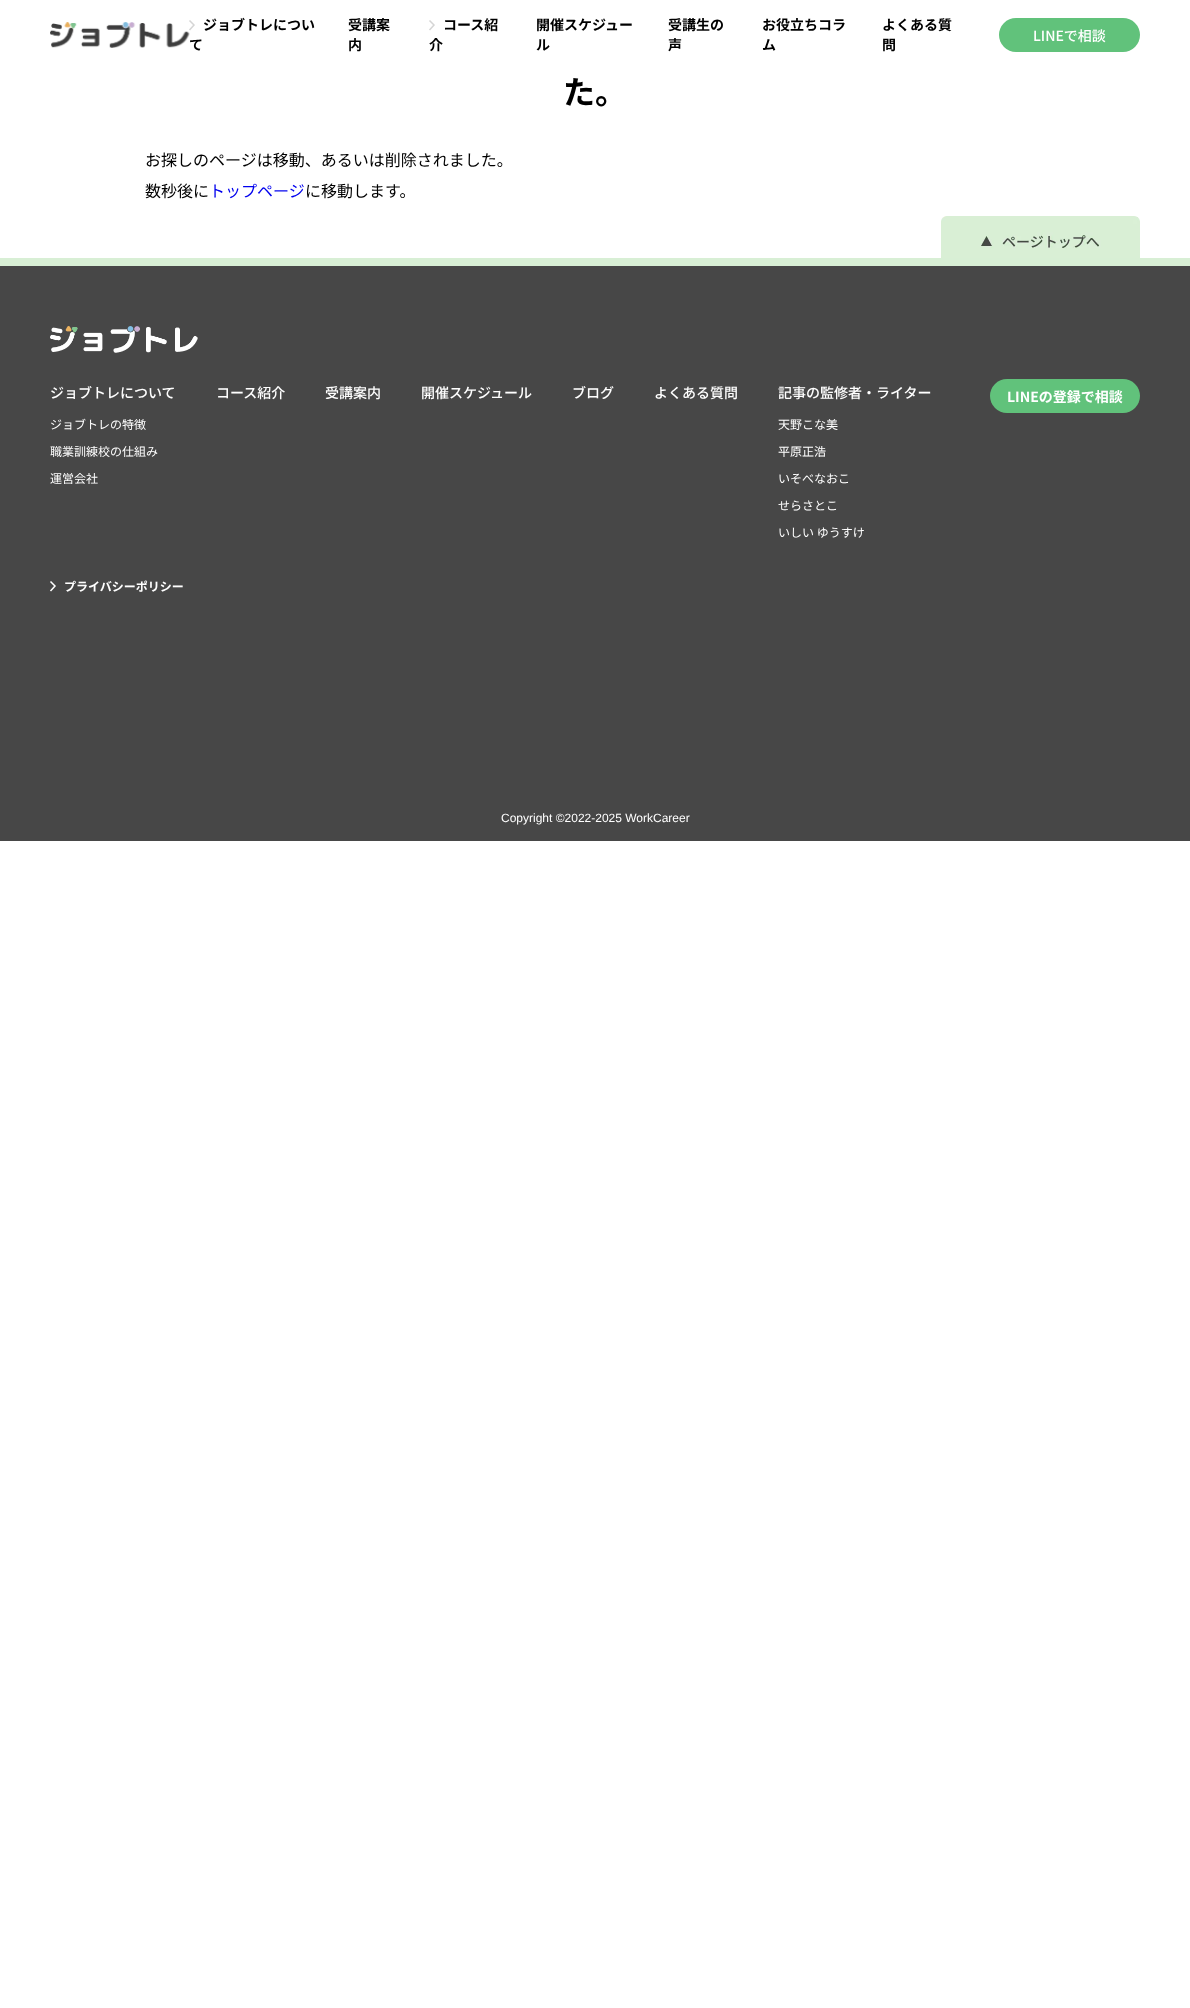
<svg xmlns="http://www.w3.org/2000/svg" xmlns:xlink="http://www.w3.org/1999/xlink" width="1190" height="2008" viewBox="0 0 1190 2008">
<style>
.cls-1{font:bold 14px Noto Sans JP;fill:#000000}
.cls-2{font:500 14px Noto Sans JP;fill:#ffffff}
.cls-3{font:bold 32px Noto Sans JP;fill:#000000}
.cls-4{font:16px Noto Sans JP;fill:#000000}
.cls-5{font:16px Noto Sans JP;fill:#0000ee}
.cls-6{font:12px Noto Sans JP;fill:#ffffff}
.cls-7{font:bold 14px Noto Sans JP;fill:#ffffff}
.cls-8{font:bold 12px Noto Sans JP;fill:#ffffff}
.cls-9{font:12px Liberation Sans;fill:#ffffff}
</style>
<rect width="100%" height="100%" fill="#ffffff"/>
<image xlink:href="image0.png" x="50" y="22" width="140" height="26"/>
<path fill="none" stroke="#d5d5d5" stroke-width="1.5" d="M189.5 20.5L194 25L189.5 30"/>
<path fill="none" stroke="#d5d5d5" stroke-width="1.5" d="M429.5 20.5L434 25L429.5 30"/>
<rect fill="#61c27b" x="999" y="18" width="141" height="34" rx="17"/>
<rect fill="#474747" x="0" y="266" width="1190" height="575"/>
<rect fill="#d8efd5" x="0" y="258" width="1190" height="8"/>
<image xlink:href="image1.png" x="941" y="216" width="199" height="42"/>
<image xlink:href="image2.png" x="50" y="326" width="148" height="27"/>
<rect fill="#61c27b" x="990" y="379" width="150" height="34" rx="17"/>
<path fill="none" stroke="#ffffff" stroke-width="1.5" d="M50.5 581.5L55 586L50.5 591"/>
<text class="cls-1" x="203" y="30">ジョブトレについ</text>
<text class="cls-1" x="189" y="50">て</text>
<text class="cls-1"><tspan x="348" y="30">受講案</tspan><tspan x="348" y="50">内</tspan></text>
<text class="cls-1" x="443" y="30">コース紹</text>
<text class="cls-1" x="429" y="50">介</text>
<text class="cls-1"><tspan x="536" y="30">開催スケジュー</tspan><tspan x="536" y="50">ル</tspan></text>
<text class="cls-1"><tspan x="668" y="30">受講生の</tspan><tspan x="668" y="50">声</tspan></text>
<text class="cls-1"><tspan x="762" y="30">お役立ちコラ</tspan><tspan x="762" y="50">ム</tspan></text>
<text class="cls-1"><tspan x="882" y="30">よくある質</tspan><tspan x="882" y="50">問</tspan></text>
<text class="cls-2" x="1033" y="41">LINEで相談</text>
<text class="cls-3" x="563" y="104">た。</text>
<text class="cls-4"><tspan x="145" y="166">お探しのページは移動、あるいは削除されました。</tspan><tspan x="145" y="197">数秒後に</tspan></text>
<text class="cls-5" x="209" y="197">トップページ</text>
<text class="cls-4" x="305" y="197">に移動します。</text>
<text class="cls-2" x="50" y="398">ジョブトレについて</text>
<text class="cls-6" x="50" y="429">ジョブトレの特徴</text>
<text class="cls-6" x="50" y="456">職業訓練校の仕組み</text>
<text class="cls-6" x="50" y="483">運営会社</text>
<text class="cls-2" x="216" y="398">コース紹介</text>
<text class="cls-2" x="325" y="398">受講案内</text>
<text class="cls-2" x="421" y="398">開催スケジュール</text>
<text class="cls-2" x="572" y="398">ブログ</text>
<text class="cls-2" x="654" y="398">よくある質問</text>
<text class="cls-2" x="778" y="398">記事の監修者・ライター</text>
<text class="cls-6" x="778" y="429">天野こな美</text>
<text class="cls-6" x="778" y="456">平原正浩</text>
<text class="cls-6" x="778" y="483">いそべなおこ</text>
<text class="cls-6" x="778" y="510">せらさとこ</text>
<text class="cls-6" x="778" y="537">いしい ゆうすけ</text>
<text class="cls-7" x="1007" y="402">LINEの登録で相談</text>
<text class="cls-8" x="64" y="591">プライバシーポリシー</text>
<text class="cls-9" x="501" y="822">Copyright ©2022-2025 WorkCareer</text>
</svg>
